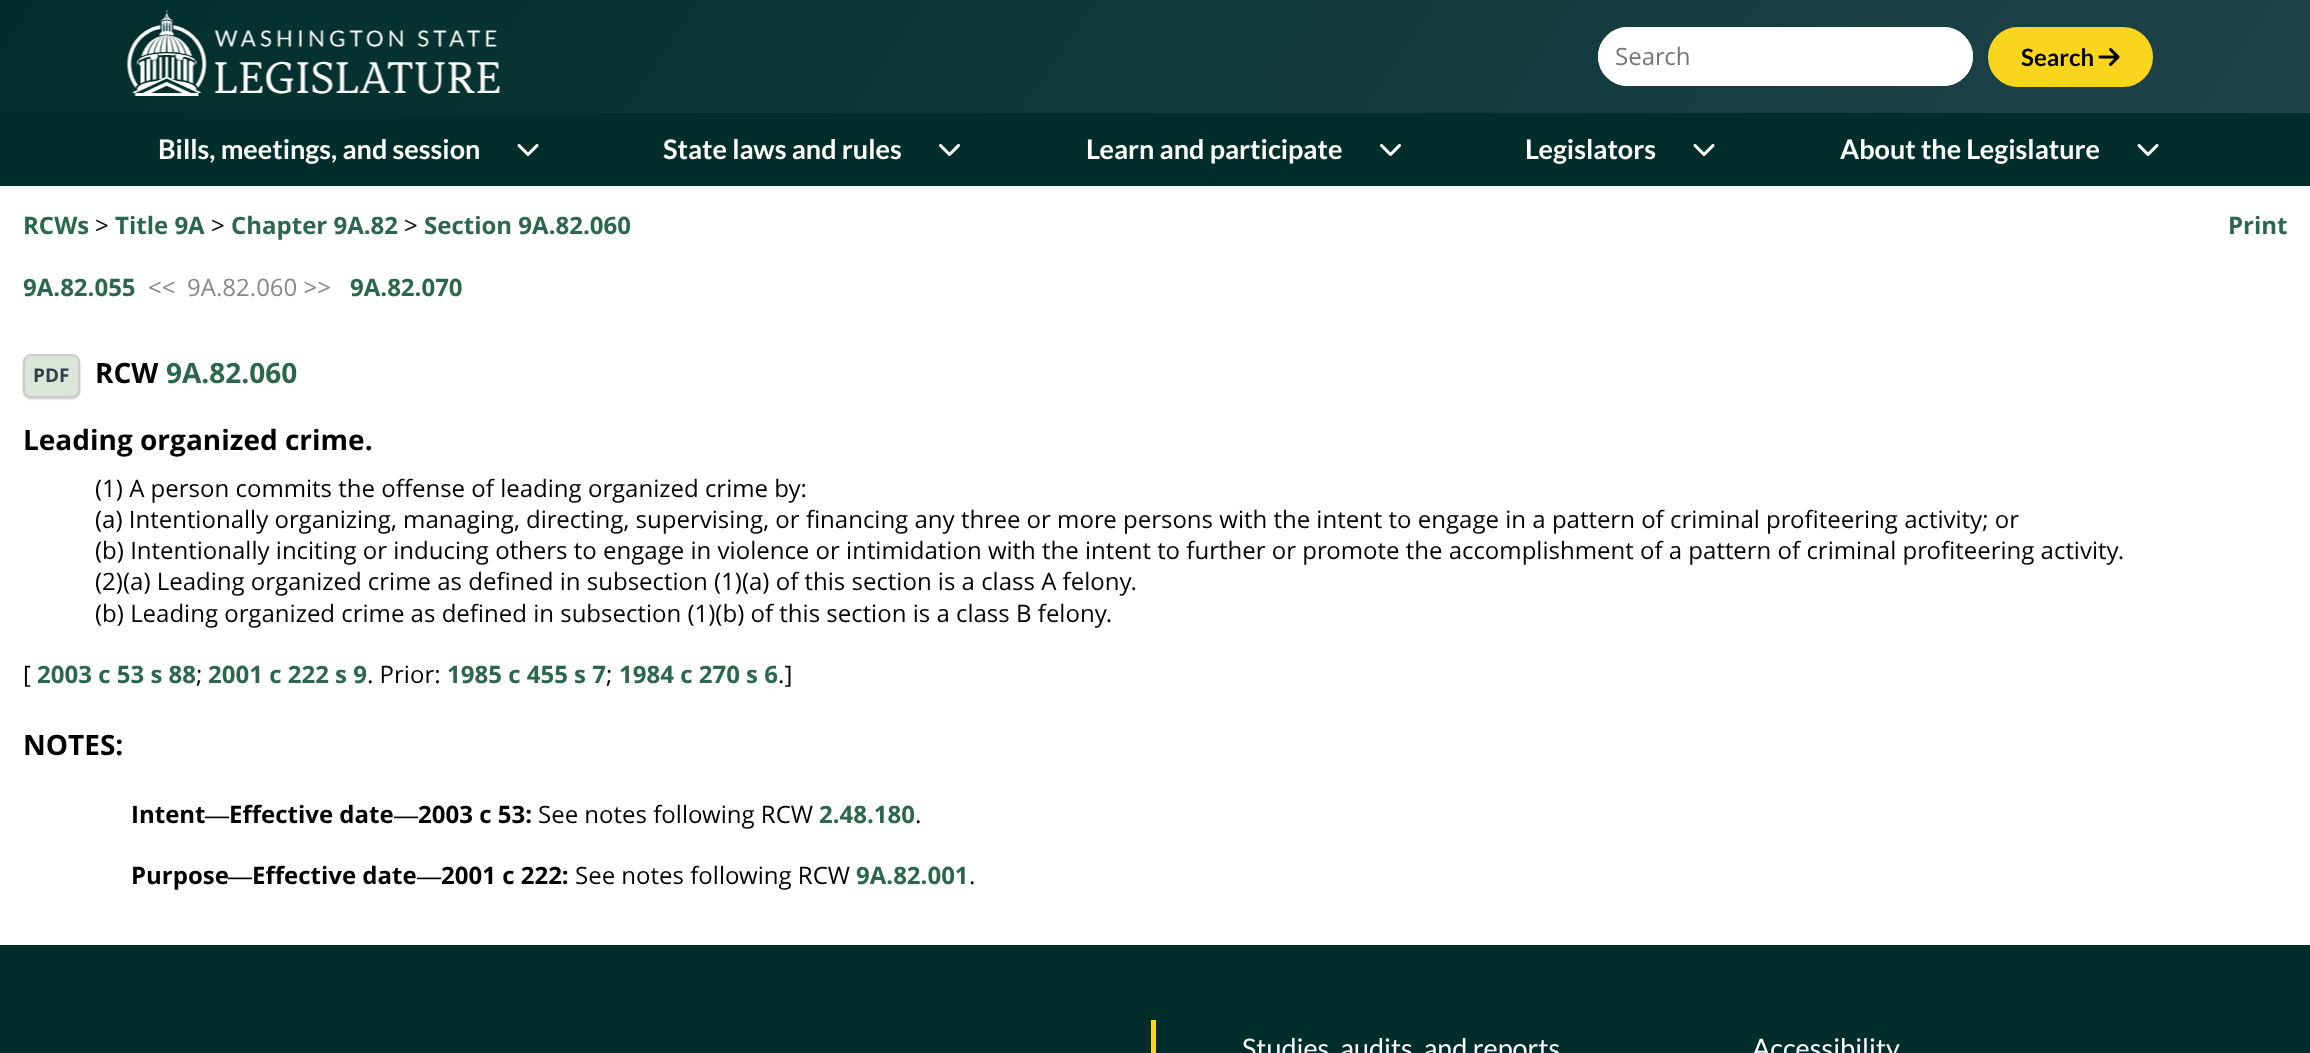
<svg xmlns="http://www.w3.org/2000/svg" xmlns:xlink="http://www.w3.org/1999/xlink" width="2310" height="1053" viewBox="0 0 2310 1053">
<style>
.cls-1{font:24px Open Sans;fill:#757575}
.cls-2{font:bold 24px Lato;fill:#000000}
.cls-3{font:bold 27px Lato;fill:#ffffff}
.cls-4{font:bold 24px Open Sans;fill:#2b674d}
.cls-5{font:24px Open Sans;fill:#000000}
.cls-6{font:24px Open Sans;fill:#888888}
.cls-7{font:bold 19px Open Sans;fill:#2f3e46}
.cls-8{font:bold 28px Open Sans;fill:#000000}
.cls-9{font:bold 28px Open Sans;fill:#2b674d}
.cls-10{font:bold 24px Open Sans;fill:#000000}
.cls-11{font:bold 24px Liberation Serif;fill:#000000}
.cls-12{font:27px Lato;fill:#ffffff}
</style>
<defs>
<linearGradient id="g1" gradientUnits="userSpaceOnUse" x1="1975" y1="609" x2="335" y2="-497"><stop offset="0" stop-color="#1e434a"/><stop offset="1" stop-color="#012e2a"/></linearGradient>
</defs>
<rect width="100%" height="100%" fill="#ffffff"/>
<rect fill="#012e2a" x="0" y="113" width="2310" height="73"/>
<rect fill="url(#g1)" x="0" y="0" width="2310" height="113"/>
<image xlink:href="image0.png" x="127" y="10" width="373" height="86"/>
<rect fill="#ffffff" x="1598" y="27" width="375" height="59" rx="29.5"/>
<path fill="#333333" fill-opacity="0.3" d="M1627 28H1943C1959 28 1972 42 1972 58C1972 64 1970 70 1967 75C1971 70 1973 63 1973 56C1973 40 1960 27 1944 27H1628C1611 27 1598 40 1598 56V57C1598 42 1611 28 1627 28Z"/>
<rect fill="none" stroke="#ffffff" stroke-width="3" x="1599.5" y="28.5" width="372" height="56" rx="28"/>
<rect fill="#fad51d" stroke="#fad51d" stroke-width="3" x="1989.5" y="28.5" width="162" height="57" rx="28.5"/>
<image xlink:href="image1.png" x="2098" y="48" width="22" height="18"/>
<image xlink:href="image2.png" x="517" y="144" width="22" height="12"/>
<image xlink:href="image3.png" x="939" y="144" width="21" height="12"/>
<image xlink:href="image3.png" x="1380" y="144" width="21" height="12"/>
<image xlink:href="image2.png" x="1693" y="144" width="22" height="12"/>
<image xlink:href="image2.png" x="2137" y="144" width="22" height="12"/>
<rect fill="#333333" fill-opacity="0.3" filter="blur(1px)" x="23" y="356" width="57" height="43" rx="8"/>
<rect fill="#dbe6db" stroke="#cccccc" stroke-width="2" x="24" y="355" width="55" height="42" rx="7"/>
<rect fill="#012e2a" x="0" y="945" width="2310" height="108"/>
<rect fill="#fad51d" x="1151" y="1020" width="5" height="33"/>
<text class="cls-1" x="1615" y="65">Search</text>
<text class="cls-2" x="2021" y="66">Search</text>
<text class="cls-3" x="158" y="159">Bills, meetings, and session</text>
<text class="cls-3" x="663" y="159">State laws and rules</text>
<text class="cls-3" x="1086" y="159">Learn and participate</text>
<text class="cls-3" x="1525" y="159">Legislators</text>
<text class="cls-3" x="1840" y="159">About the Legislature</text>
<text class="cls-4" x="23" y="234">RCWs</text>
<text class="cls-5" x="95" y="234">&gt;</text>
<text class="cls-4" x="115" y="234">Title 9A</text>
<text class="cls-5" x="211" y="234">&gt;</text>
<text class="cls-4" x="231" y="234">Chapter 9A.82</text>
<text class="cls-5" x="404" y="234">&gt;</text>
<text class="cls-4" x="424" y="234">Section 9A.82.060</text>
<text class="cls-4" x="2228" y="234">Print</text>
<text class="cls-4" x="23" y="296">9A.82.055</text>
<text class="cls-6" x="148" y="296">&lt;&lt;</text>
<text class="cls-6" x="187" y="296">9A.82.060 &gt;&gt;</text>
<text class="cls-4" x="350" y="296">9A.82.070</text>
<text class="cls-7" x="33" y="382">PDF</text>
<text class="cls-8" x="95" y="383">RCW</text>
<text class="cls-9" x="166" y="383">9A.82.060</text>
<text class="cls-8" x="23" y="450">Leading organized crime.</text>
<text class="cls-5"><tspan x="95" y="497">(1) A person commits the offense of leading organized crime by:</tspan><tspan x="95" y="528">(a) Intentionally organizing, managing, directing, supervising, or financing any three or more persons with the intent to engage in a pattern of criminal profiteering activity; or</tspan><tspan x="95" y="559">(b) Intentionally inciting or inducing others to engage in violence or intimidation with the intent to further or promote the accomplishment of a pattern of criminal profiteering activity.</tspan><tspan x="95" y="590">(2)(a) Leading organized crime as defined in subsection (1)(a) of this section is a class A felony.</tspan><tspan x="95" y="622">(b) Leading organized crime as defined in subsection (1)(b) of this section is a class B felony.</tspan></text>
<text class="cls-5" x="23" y="683">[</text>
<text class="cls-4" x="37" y="683">2003 c 53 s 88</text>
<text class="cls-5" x="196" y="683">;</text>
<text class="cls-4" x="208" y="683">2001 c 222 s 9</text>
<text class="cls-5" x="367" y="683">. Prior:</text>
<text class="cls-4" x="447" y="683">1985 c 455 s 7</text>
<text class="cls-5" x="606" y="683">;</text>
<text class="cls-4" x="619" y="683">1984 c 270 s 6</text>
<text class="cls-5" x="778" y="683">.]</text>
<text class="cls-8" x="23" y="755">NOTES:</text>
<text class="cls-10" x="131" y="823">Intent</text>
<text class="cls-11" x="205" y="823">—</text>
<text class="cls-10" x="229" y="823">Effective date</text>
<text class="cls-11" x="394" y="823">—</text>
<text class="cls-10" x="418" y="823">2003 c 53:</text>
<text class="cls-5" x="538" y="823">See notes following RCW</text>
<text class="cls-4" x="819" y="823">2.48.180</text>
<text class="cls-5" x="915" y="823">.</text>
<text class="cls-10" x="131" y="884">Purpose</text>
<text class="cls-11" x="228" y="884">—</text>
<text class="cls-10" x="252" y="884">Effective date</text>
<text class="cls-11" x="417" y="884">—</text>
<text class="cls-10" x="441" y="884">2001 c 222:</text>
<text class="cls-5" x="575" y="884">See notes following RCW</text>
<text class="cls-4" x="856" y="884">9A.82.001</text>
<text class="cls-5" x="969" y="884">.</text>
<text class="cls-12" x="1242" y="1058">Studies, audits, and reports</text>
<text class="cls-12" x="1752" y="1058">Accessibility</text>
</svg>
